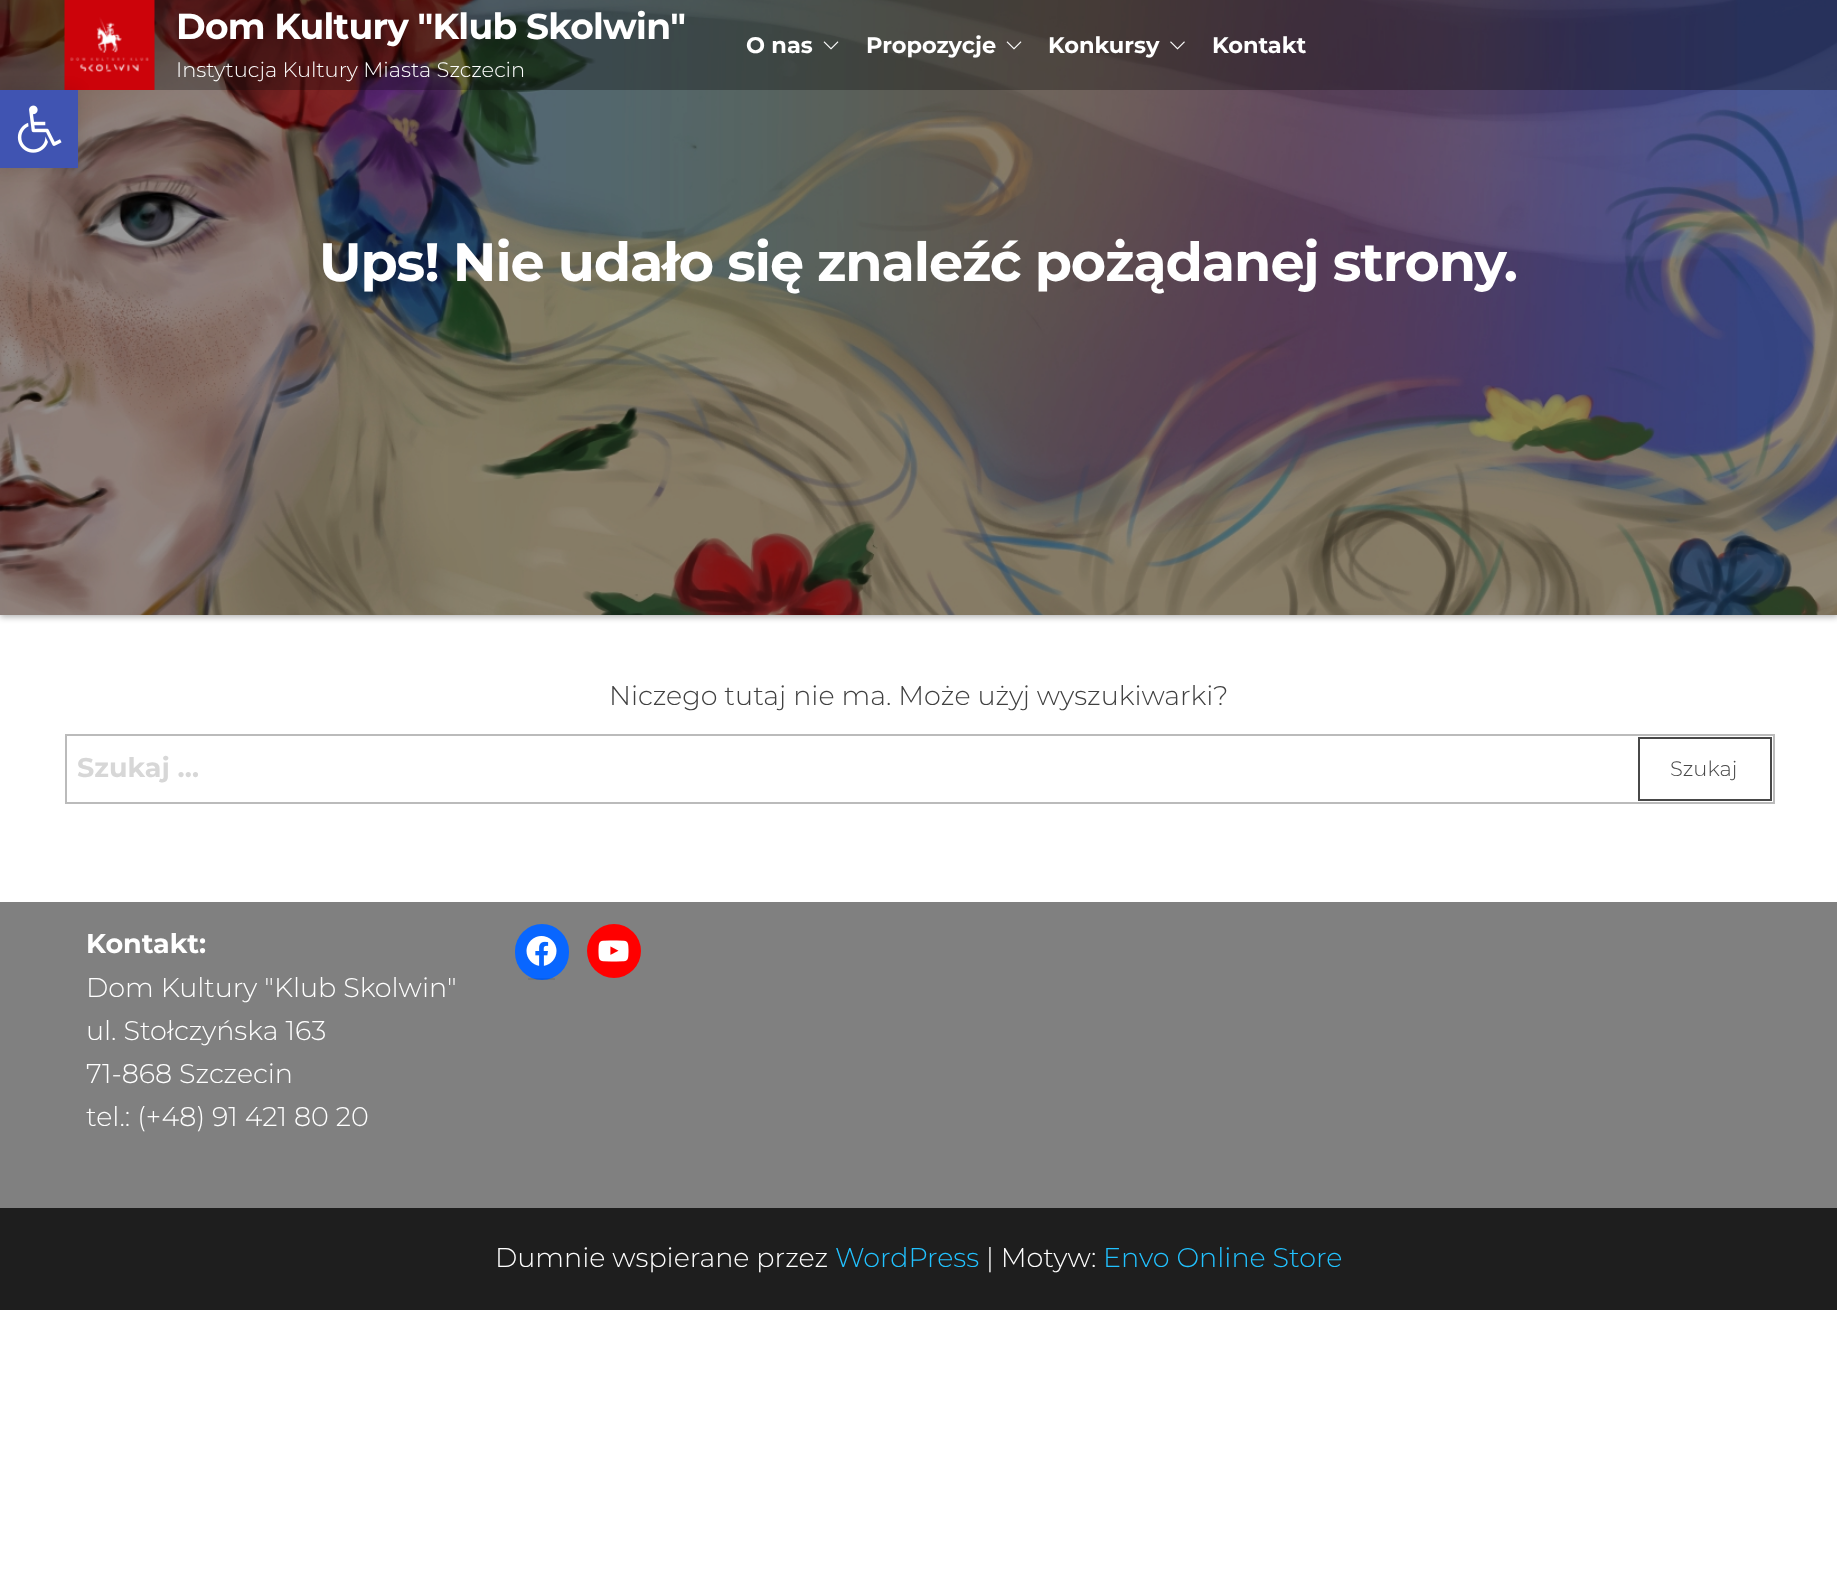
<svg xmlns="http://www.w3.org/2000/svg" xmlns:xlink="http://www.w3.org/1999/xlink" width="1837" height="1581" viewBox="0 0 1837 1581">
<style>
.cls-1{font:bold 36px Montserrat;letter-spacing:-0.75px;fill:#ffffff}
.cls-2{font:300 21px Montserrat;fill:#ffffff}
.cls-3{font:bold 22.5px Montserrat;fill:#ffffff}
.cls-4{font:bold 54px Montserrat;letter-spacing:-1.1px;fill:#ffffff}
.cls-5{font:300 27px Montserrat;fill:#404040}
.cls-6{font:bold 27px Montserrat;fill:#d7d7d7}
.cls-7{font:300 21px Montserrat;fill:#484848}
.cls-8{font:bold 27px Montserrat;fill:#ffffff}
.cls-9{font:300 27px Montserrat;fill:#ffffff}
.cls-10{font:300 27px Montserrat;fill:#22c2ff}
</style>
<rect width="100%" height="100%" fill="#ffffff"/>
<rect fill="#000000" fill-opacity="0.3" filter="blur(3px)" x="0" y="-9" width="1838" height="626"/>
<image xlink:href="image5.png" x="0" y="0" width="1837" height="615"/>
<rect fill="#080808" fill-opacity="0.31" x="0" y="0" width="1837" height="90"/>
<image xlink:href="image1.png" x="64" y="0" width="91" height="90"/>
<rect fill="#000000" fill-opacity="0.1" filter="blur(7.5px)" x="0" y="90" width="78" height="78"/>
<rect fill="#4054b2" x="0" y="90" width="78" height="78"/>
<image xlink:href="image0.png" x="17" y="105" width="45" height="48"/>
<image xlink:href="image2.png" x="823" y="41" width="16" height="9"/>
<image xlink:href="image3.png" x="1006" y="41" width="16" height="9"/>
<image xlink:href="image4.png" x="1170" y="41" width="15" height="9"/>
<rect fill="none" stroke="#bbbbbb" stroke-width="2" x="66" y="735" width="1708" height="68"/>
<rect fill="none" stroke="#484848" stroke-width="2" x="1639" y="738" width="132" height="62"/>
<rect fill="#808080" x="0" y="902" width="1837" height="306"/>
<rect fill="#0866ff" x="515" y="924" width="54" height="56" rx="27"/>
<rect fill="#000000" fill-opacity="0.08" x="528" y="978" width="27" height="2"/>
<image xlink:href="image6.png" x="526" y="936" width="31" height="30"/>
<circle fill="#ff0000" cx="614" cy="951" r="27"/>
<image xlink:href="image7.png" x="598" y="940" width="31" height="22"/>
<rect fill="#1e1e1e" x="0" y="1208" width="1837" height="102"/>
<text class="cls-1" x="176" y="39">Dom Kultury "Klub Skolwin"</text>
<text class="cls-2" x="176" y="77">Instytucja Kultury Miasta Szczecin</text>
<text class="cls-3" x="746" y="53">O nas</text>
<text class="cls-3" x="866" y="53">Propozycje</text>
<text class="cls-3" x="1048" y="53">Konkursy</text>
<text class="cls-3" x="1212" y="53">Kontakt</text>
<text class="cls-4" x="319" y="281">Ups! Nie udało się znaleźć pożądanej strony.</text>
<text class="cls-5" x="609" y="705">Niczego tutaj nie ma. Może użyj wyszukiwarki?</text>
<text class="cls-6" x="77" y="777">Szukaj …</text>
<text class="cls-7" x="1670" y="776">Szukaj</text>
<text class="cls-8" x="86" y="953">Kontakt:</text>
<text class="cls-9"><tspan x="86" y="997">Dom Kultury "Klub Skolwin"</tspan><tspan x="86" y="1040">ul. Stołczyńska 163</tspan><tspan x="86" y="1083">71-868 Szczecin</tspan><tspan x="86" y="1126">tel.: (+48) 91 421 80 20</tspan></text>
<text class="cls-9" x="495" y="1267">Dumnie wspierane przez</text>
<text class="cls-10" x="835" y="1267">WordPress</text>
<text class="cls-9" x="986" y="1267">| Motyw:</text>
<text class="cls-10" x="1103" y="1267">Envo Online Store</text>
</svg>
